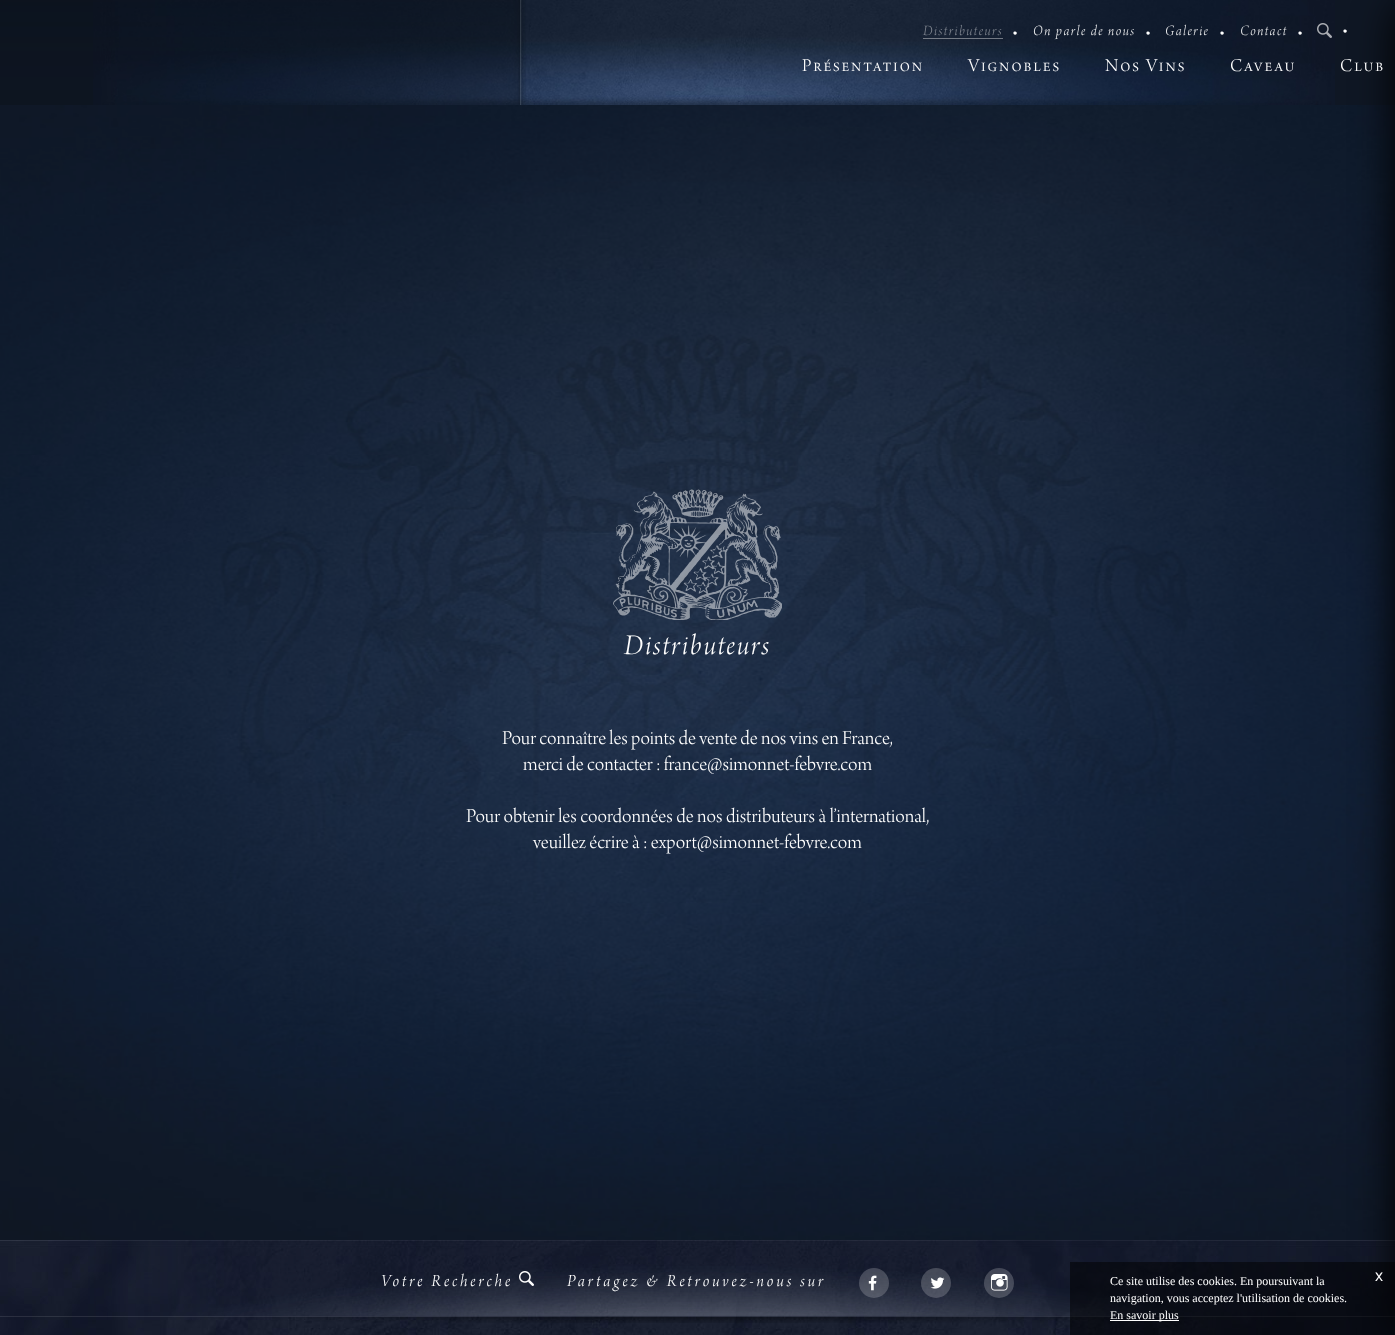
<svg xmlns="http://www.w3.org/2000/svg" xmlns:xlink="http://www.w3.org/1999/xlink" width="1395" height="1335" viewBox="0 0 1395 1335">
<style>
.cls-1{font:italic 300 15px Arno;letter-spacing:1.5px;fill:#7f858f}
.cls-2{font:12px Liberation Sans;fill:#ffffff}
.cls-3{font:italic 300 15px Arno;letter-spacing:1.5px;fill:#e7e8ea}
.cls-4{font:300 19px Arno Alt;letter-spacing:2px;fill:#ffffff}
.cls-5{font:italic 300 30px Arno;letter-spacing:2px;fill:#ffffff}
.cls-6{font:300 20.8px Arno;fill:#ffffff}
.cls-7{font:italic 300 18px Arno;letter-spacing:3px;fill:#ffffff}
.cls-8{font:12px Liberation Serif;fill:#ffffff}
.cls-9{font:16px Liberation Sans;fill:#ffffff}
</style>
<rect width="100%" height="100%" fill="#152032"/>
<rect fill="#0f1724" x="0" y="0" width="1395" height="105"/>
<image xlink:href="image0.png" x="93" y="0" width="1242" height="105"/>
<image xlink:href="image3.png" x="0" y="105" width="1395" height="1135"/>
<image xlink:href="image5.png" x="0" y="1240" width="1395" height="95"/>
<image xlink:href="image6.png" x="88" y="1240" width="1200" height="83"/>
<rect fill="#ffffff" fill-opacity="0.1" x="0" y="1316" width="1395" height="1"/>
<rect fill="#000000" filter="blur(20px)" x="1395" y="1" width="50" height="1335" rx="25"/>
<image xlink:href="image1.png" x="0" y="0" width="526" height="105"/>
<rect fill="#ffffff" fill-opacity="0.4" x="923" y="38" width="80" height="1"/>
<image xlink:href="image2.png" x="1317" y="23" width="15" height="15"/>
<image xlink:href="image4.png" x="613" y="489" width="169" height="131"/>
<image xlink:href="image7.png" x="519" y="1271" width="15" height="15"/>
<circle fill="#ffffff" fill-opacity="0.2" cx="874" cy="1283" r="15"/>
<image xlink:href="image8.png" x="868" y="1275" width="9" height="16"/>
<circle fill="#ffffff" fill-opacity="0.2" cx="936" cy="1283" r="15"/>
<image xlink:href="image9.png" x="930" y="1277" width="15" height="12"/>
<circle fill="#ffffff" fill-opacity="0.2" cx="999" cy="1283" r="15"/>
<image xlink:href="image10.png" x="991" y="1274" width="17" height="17"/>
<rect fill="#000000" fill-opacity="0.5" x="1070" y="1262" width="325" height="73"/>
<rect fill="#ffffff" x="1110" y="1320" width="69" height="1"/>
<text class="cls-1" x="923" y="35">Distributeurs</text>
<text class="cls-2" x="1013" y="37">•</text>
<text class="cls-3" x="1033" y="35">On parle de nous</text>
<text class="cls-2" x="1146" y="37">•</text>
<text class="cls-3" x="1165" y="35">Galerie</text>
<text class="cls-2" x="1220" y="37">•</text>
<text class="cls-3" x="1240" y="35">Contact</text>
<text class="cls-2" x="1298" y="37">•</text>
<text class="cls-2" x="1343" y="35">•</text>
<text class="cls-4" x="802" y="71">Présentation</text>
<text class="cls-4" x="968" y="71">Vignobles</text>
<text class="cls-4" x="1105" y="71">Nos Vins</text>
<text class="cls-4" x="1230" y="71">Caveau</text>
<text class="cls-4" x="1340" y="71">Club</text>
<text class="cls-5" x="624" y="654">Distributeurs</text>
<text class="cls-6" x="502" y="744">Pour connaître les points de vente de nos vins en France,</text>
<text class="cls-6" x="523" y="770">merci de contacter : france@simonnet-febvre.com</text>
<text class="cls-6" x="466" y="822" word-spacing="0.25">Pour obtenir les coordonnées de nos distributeurs à l’international,</text>
<text class="cls-6" x="533" y="848">veuillez écrire à : export@simonnet-febvre.com</text>
<text class="cls-7" x="381" y="1286">Votre Recherche</text>
<text class="cls-7" x="567" y="1286">Partagez &amp; Retrouvez-nous sur</text>
<text class="cls-8" x="1110" y="1285">Ce site utilise des cookies. En poursuivant la</text>
<text class="cls-9" x="1375" y="1281">x</text>
<text class="cls-8"><tspan x="1110" y="1302">navigation, vous acceptez l'utilisation de cookies.</tspan><tspan x="1110" y="1319">En savoir plus</tspan></text>
</svg>
